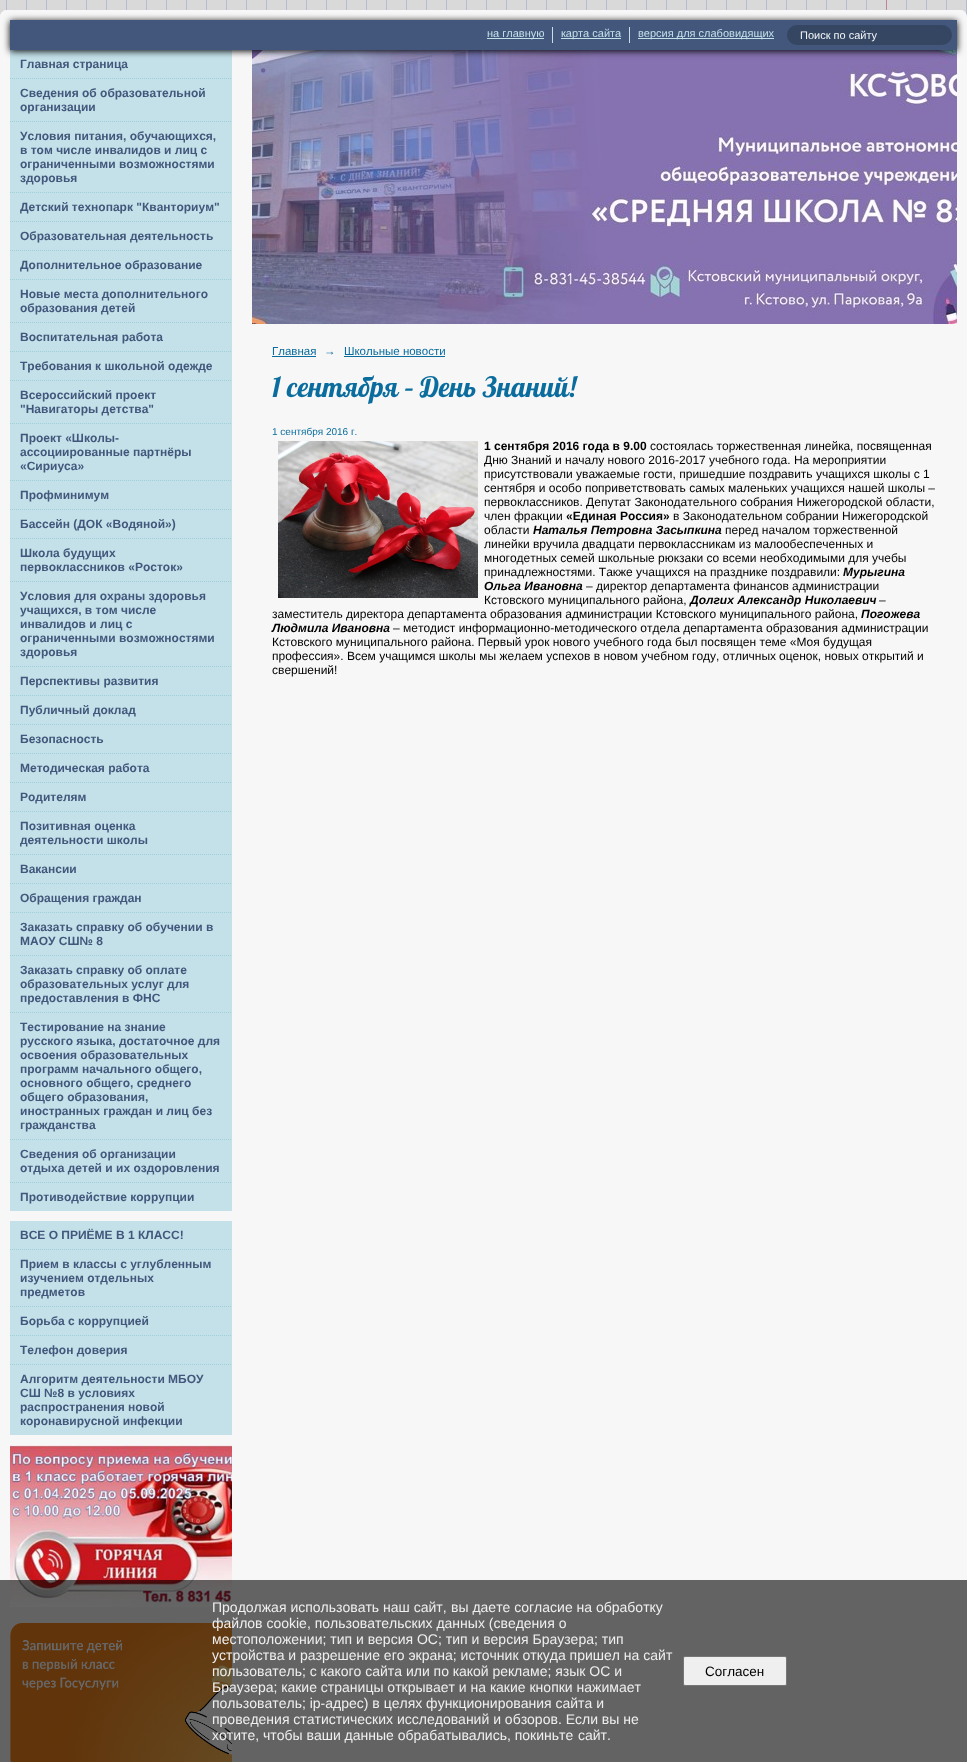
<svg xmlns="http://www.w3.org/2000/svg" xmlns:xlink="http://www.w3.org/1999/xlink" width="967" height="1762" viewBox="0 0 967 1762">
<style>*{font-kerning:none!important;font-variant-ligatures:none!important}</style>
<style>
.cls-1{font:11px Liberation Sans;fill:#c4e1e9}
.cls-2{font:11px Liberation Sans;fill:#f5f7fa}
.cls-3{font:bold 12px Liberation Sans;fill:#42577b}
.cls-4{font:11.5px Liberation Sans;fill:#0a6d9e}
.cls-5{font:italic 11.5px Liberation Sans;fill:#0a6d9e}
.cls-6{font:28px Lobster;fill:#0a6d9e}
.cls-7{font:10px Liberation Sans;fill:#0a6d9e}
.cls-8{font:bold 12px Liberation Sans;fill:#000000}
.cls-9{font:12px Liberation Sans;fill:#000000}
.cls-10{font:italic bold 12px Liberation Sans;fill:#000000}
.cls-11{font:14px Liberation Sans;fill:#efefef}
.cls-12{font:13.5px Liberation Sans;fill:#000000}
</style>
<rect width="100%" height="100%" fill="#ffffff"/>
<image xlink:href="image0.png" x="0" y="0" width="967" height="17"/>
<rect fill="none" stroke="#000000" stroke-opacity="0.15" stroke-width="14" x="-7" y="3" width="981" height="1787" rx="14"/>
<rect fill="#f7f7f7" x="0" y="10" width="967" height="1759" rx="7"/>
<rect fill="#c4e1e9" x="10" y="50" width="222" height="1161"/>
<image xlink:href="image3.png" x="252" y="50" width="705" height="274"/>
<rect fill="#000000" filter="blur(3.5px)" x="10" y="21" width="947" height="30"/>
<rect fill="#42577b" x="10" y="20" width="947" height="30"/>
<rect fill="#c4e1e9" x="487" y="38" width="57" height="1"/>
<rect fill="#c4e1e9" x="552" y="27" width="1" height="16"/>
<rect fill="#c4e1e9" x="561" y="38" width="60" height="1"/>
<rect fill="#c4e1e9" x="629" y="27" width="1" height="16"/>
<rect fill="#c4e1e9" x="638" y="38" width="136" height="1"/>
<rect fill="#354662" x="787" y="25" width="165" height="20" rx="10"/>
<path fill="none" stroke="#9fcfdb" stroke-dasharray="1 1" d="M10 78.5H232"/>
<path fill="none" stroke="#9fcfdb" stroke-dasharray="1 1" d="M10 121.5H232"/>
<path fill="none" stroke="#9fcfdb" stroke-dasharray="1 1" d="M10 192.5H232"/>
<path fill="none" stroke="#9fcfdb" stroke-dasharray="1 1" d="M10 221.5H232"/>
<path fill="none" stroke="#9fcfdb" stroke-dasharray="1 1" d="M10 250.5H232"/>
<path fill="none" stroke="#9fcfdb" stroke-dasharray="1 1" d="M10 279.5H232"/>
<path fill="none" stroke="#9fcfdb" stroke-dasharray="1 1" d="M10 322.5H232"/>
<path fill="none" stroke="#9fcfdb" stroke-dasharray="1 1" d="M10 351.5H232"/>
<path fill="none" stroke="#9fcfdb" stroke-dasharray="1 1" d="M10 380.5H232"/>
<path fill="none" stroke="#9fcfdb" stroke-dasharray="1 1" d="M10 423.5H232"/>
<path fill="none" stroke="#9fcfdb" stroke-dasharray="1 1" d="M10 480.5H232"/>
<path fill="none" stroke="#9fcfdb" stroke-dasharray="1 1" d="M10 509.5H232"/>
<path fill="none" stroke="#9fcfdb" stroke-dasharray="1 1" d="M10 538.5H232"/>
<path fill="none" stroke="#9fcfdb" stroke-dasharray="1 1" d="M10 581.5H232"/>
<path fill="none" stroke="#9fcfdb" stroke-dasharray="1 1" d="M10 666.5H232"/>
<path fill="none" stroke="#9fcfdb" stroke-dasharray="1 1" d="M10 695.5H232"/>
<path fill="none" stroke="#9fcfdb" stroke-dasharray="1 1" d="M10 724.5H232"/>
<path fill="none" stroke="#9fcfdb" stroke-dasharray="1 1" d="M10 753.5H232"/>
<path fill="none" stroke="#9fcfdb" stroke-dasharray="1 1" d="M10 782.5H232"/>
<path fill="none" stroke="#9fcfdb" stroke-dasharray="1 1" d="M10 811.5H232"/>
<path fill="none" stroke="#9fcfdb" stroke-dasharray="1 1" d="M10 854.5H232"/>
<path fill="none" stroke="#9fcfdb" stroke-dasharray="1 1" d="M10 883.5H232"/>
<path fill="none" stroke="#9fcfdb" stroke-dasharray="1 1" d="M10 912.5H232"/>
<path fill="none" stroke="#9fcfdb" stroke-dasharray="1 1" d="M10 955.5H232"/>
<path fill="none" stroke="#9fcfdb" stroke-dasharray="1 1" d="M10 1012.5H232"/>
<path fill="none" stroke="#9fcfdb" stroke-dasharray="1 1" d="M10 1139.5H232"/>
<path fill="none" stroke="#9fcfdb" stroke-dasharray="1 1" d="M10 1182.5H232"/>
<rect fill="#c4e1e9" x="10" y="1221" width="222" height="214"/>
<path fill="none" stroke="#9fcfdb" stroke-dasharray="1 1" d="M10 1249.5H232"/>
<path fill="none" stroke="#9fcfdb" stroke-dasharray="1 1" d="M10 1306.5H232"/>
<path fill="none" stroke="#9fcfdb" stroke-dasharray="1 1" d="M10 1335.5H232"/>
<path fill="none" stroke="#9fcfdb" stroke-dasharray="1 1" d="M10 1364.5H232"/>
<image xlink:href="image1.png" x="10" y="1445" width="222" height="162"/>
<image xlink:href="image2.png" x="10" y="1623" width="222" height="139"/>
<rect fill="#0a6d9e" x="272" y="356" width="44" height="1"/>
<rect fill="#0a6d9e" x="344" y="356" width="101" height="1"/>
<image xlink:href="image4.png" x="278" y="441" width="200" height="157"/>
<rect fill="#000000" fill-opacity="0.6" x="0" y="1580" width="967" height="182"/>
<rect fill="#efefef" stroke="#767676" x="683.5" y="1656.5" width="103" height="29" rx="1.5"/>
<text class="cls-1" x="487" y="37">на главную</text>
<text class="cls-1" x="561" y="37">карта сайта</text>
<text class="cls-1" x="638" y="37">версия для слабовидящих</text>
<text class="cls-2" x="800" y="39">Поиск по сайту</text>
<text class="cls-3" x="20" y="68">Главная страница</text>
<text class="cls-3"><tspan x="20" y="97">Сведения об образовательной</tspan><tspan x="20" y="111">организации</tspan></text>
<text class="cls-3"><tspan x="20" y="140">Условия питания, обучающихся,</tspan><tspan x="20" y="154">в том числе инвалидов и лиц с</tspan><tspan x="20" y="168">ограниченными возможностями</tspan><tspan x="20" y="182">здоровья</tspan></text>
<text class="cls-3" x="20" y="211">Детский технопарк "Кванториум"</text>
<text class="cls-3" x="20" y="240">Образовательная деятельность</text>
<text class="cls-3" x="20" y="269">Дополнительное образование</text>
<text class="cls-3"><tspan x="20" y="298">Новые места дополнительного</tspan><tspan x="20" y="312">образования детей</tspan></text>
<text class="cls-3" x="20" y="341">Воспитательная работа</text>
<text class="cls-3" x="20" y="370">Требования к школьной одежде</text>
<text class="cls-3"><tspan x="20" y="399">Всероссийский проект</tspan><tspan x="20" y="413">"Навигаторы детства"</tspan></text>
<text class="cls-3"><tspan x="20" y="442">Проект «Школы-</tspan><tspan x="20" y="456">ассоциированные партнёры</tspan><tspan x="20" y="470">«Сириуса»</tspan></text>
<text class="cls-3" x="20" y="499">Профминимум</text>
<text class="cls-3" x="20" y="528">Бассейн (ДОК «Водяной»)</text>
<text class="cls-3"><tspan x="20" y="557">Школа будущих</tspan><tspan x="20" y="571">первоклассников «Росток»</tspan></text>
<text class="cls-3"><tspan x="20" y="600">Условия для охраны здоровья</tspan><tspan x="20" y="614">учащихся, в том числе</tspan><tspan x="20" y="628">инвалидов и лиц с</tspan><tspan x="20" y="642">ограниченными возможностями</tspan><tspan x="20" y="656">здоровья</tspan></text>
<text class="cls-3" x="20" y="685">Перспективы развития</text>
<text class="cls-3" x="20" y="714">Публичный доклад</text>
<text class="cls-3" x="20" y="743">Безопасность</text>
<text class="cls-3" x="20" y="772">Методическая работа</text>
<text class="cls-3" x="20" y="801">Родителям</text>
<text class="cls-3"><tspan x="20" y="830">Позитивная оценка</tspan><tspan x="20" y="844">деятельности школы</tspan></text>
<text class="cls-3" x="20" y="873">Вакансии</text>
<text class="cls-3" x="20" y="902">Обращения граждан</text>
<text class="cls-3"><tspan x="20" y="931">Заказать справку об обучении в</tspan><tspan x="20" y="945">МАОУ СШ№ 8</tspan></text>
<text class="cls-3"><tspan x="20" y="974">Заказать справку об оплате</tspan><tspan x="20" y="988">образовательных услуг для</tspan><tspan x="20" y="1002">предоставления в ФНС</tspan></text>
<text class="cls-3"><tspan x="20" y="1031">Тестирование на знание</tspan><tspan x="20" y="1045">русского языка, достаточное для</tspan><tspan x="20" y="1059">освоения образовательных</tspan><tspan x="20" y="1073">программ начального общего,</tspan><tspan x="20" y="1087">основного общего, среднего</tspan><tspan x="20" y="1101">общего образования,</tspan><tspan x="20" y="1115">иностранных граждан и лиц без</tspan><tspan x="20" y="1129">гражданства</tspan></text>
<text class="cls-3"><tspan x="20" y="1158">Сведения об организации</tspan><tspan x="20" y="1172">отдыха детей и их оздоровления</tspan></text>
<text class="cls-3" x="20" y="1201">Противодействие коррупции</text>
<text class="cls-3" x="20" y="1239">ВСЕ О ПРИЁМЕ В 1 КЛАСС!</text>
<text class="cls-3"><tspan x="20" y="1268">Прием в классы с углубленным</tspan><tspan x="20" y="1282">изучением отдельных</tspan><tspan x="20" y="1296">предметов</tspan></text>
<text class="cls-3" x="20" y="1325">Борьба с коррупцией</text>
<text class="cls-3" x="20" y="1354">Телефон доверия</text>
<text class="cls-3"><tspan x="20" y="1383">Алгоритм деятельности МБОУ</tspan><tspan x="20" y="1397">СШ №8 в условиях</tspan><tspan x="20" y="1411">распространения новой</tspan><tspan x="20" y="1425">коронавирусной инфекции</tspan></text>
<text class="cls-4" x="272" y="355">Главная</text>
<text class="cls-5" x="324" y="355">→</text>
<text class="cls-4" x="344" y="355">Школьные новости</text>
<text class="cls-6" x="272" y="397">1 сентября – День Знаний!</text>
<text class="cls-7" x="272" y="435">1 сентября 2016 г.</text>
<text class="cls-8" x="484" y="450">1 сентября 2016 года в 9.00</text>
<text class="cls-9" x="650" y="450">состоялась торжественная линейка, посвященная</text>
<text class="cls-9"><tspan x="484" y="464">Дню Знаний и началу нового 2016-2017 учебного года. На мероприятии</tspan><tspan x="484" y="478">присутствовали уважаемые гости, пришедшие поздравить учащихся школы с 1</tspan><tspan x="484" y="492">сентября и особо поприветствовать самых маленьких учащихся нашей школы –</tspan><tspan x="484" y="506">первоклассников. Депутат Законодательного собрания Нижегородской области,</tspan><tspan x="484" y="520">член фракции</tspan></text>
<text class="cls-8" x="566" y="520">«Единая Россия»</text>
<text class="cls-9" x="673" y="520">в Законодательном собрании Нижегородской</text>
<text class="cls-9" x="484" y="534">области</text>
<text class="cls-10" x="533" y="534">Наталья Петровна Засыпкина</text>
<text class="cls-9" x="725" y="534">перед началом торжественной</text>
<text class="cls-9"><tspan x="484" y="548">линейки вручила двадцати первоклассникам из малообеспеченных и</tspan><tspan x="484" y="562">многодетных семей школьные рюкзаки со всеми необходимыми для учебы</tspan><tspan x="484" y="576">принадлежностями. Также учащихся на празднике поздравили:</tspan></text>
<text class="cls-10" x="843" y="576">Мурыгина</text>
<text class="cls-10" x="484" y="590">Ольга Ивановна</text>
<text class="cls-9" x="586" y="590">– директор департамента финансов администрации</text>
<text class="cls-9" x="484" y="604">Кстовского муниципального района,</text>
<text class="cls-10" x="690" y="604">Долгих Александр Николаевич</text>
<text class="cls-9" x="879" y="604">–</text>
<text class="cls-9" x="272" y="618">заместитель директора департамента образования администрации Кстовского муниципального района,</text>
<text class="cls-10" x="861" y="618">Погожева</text>
<text class="cls-10" x="272" y="632">Людмила Ивановна</text>
<text class="cls-9" x="393" y="632">– методист информационно-методического отдела департамента</text>
<text class="cls-9" x="766" y="632">образования администрации</text>
<text class="cls-9"><tspan x="272" y="646">Кстовского муниципального района. Первый урок нового учебного года был посвящен теме «Моя будущая</tspan><tspan x="272" y="660">профессия». Всем учащимся школы мы желаем успехов в новом учебном году, отличных</tspan></text>
<text class="cls-9" x="779" y="660">оценок, новых открытий и</text>
<text class="cls-9" x="272" y="674">свершений!</text>
<text class="cls-11" x="212" y="1612">Продолжая использовать наш сайт,</text>
<text class="cls-11" x="451" y="1612">вы даете согласие на обработку</text>
<text class="cls-11"><tspan x="212" y="1628">файлов cookie, пользовательских данных (сведения о</tspan><tspan x="212" y="1644">местоположении; тип и версия ОС; тип и версия Браузера; тип</tspan><tspan x="212" y="1660">устройства и разрешение его экрана; источник откуда пришел на сайт</tspan><tspan x="212" y="1676">пользователь; с какого сайта или по какой рекламе; язык ОС и</tspan><tspan x="212" y="1692">Браузера; какие страницы открывает и на какие кнопки нажимает</tspan><tspan x="212" y="1708">пользователь; ip-адрес) в целях функционирования сайта и</tspan><tspan x="212" y="1724">проведения статистических исследований и обзоров. Если вы не</tspan><tspan x="212" y="1740">хотите, чтобы ваши данные обрабатывались, покиньте</tspan></text>
<text class="cls-11" x="578" y="1740">сайт.</text>
<text class="cls-12" x="705" y="1676">Согласен</text>
</svg>
